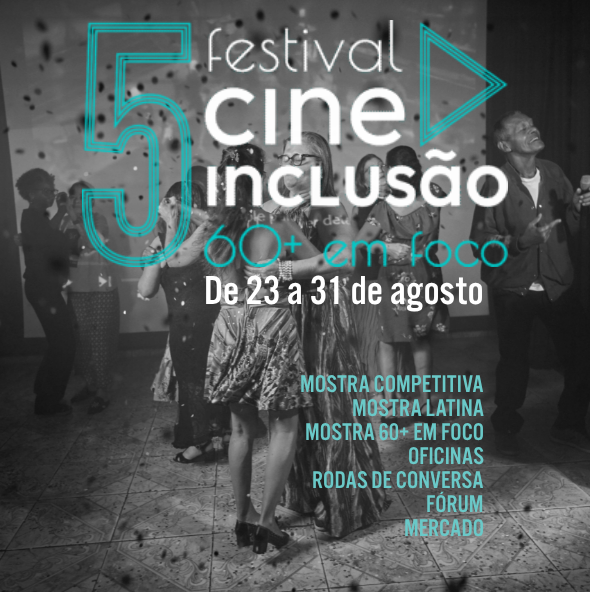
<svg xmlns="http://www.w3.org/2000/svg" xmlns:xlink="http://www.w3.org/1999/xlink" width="590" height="592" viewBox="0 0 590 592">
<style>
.cls-1{font:42px 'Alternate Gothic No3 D';fill:#ffffff}
.cls-2{font:25px 'Alternate Gothic No3 D';fill:#6ac9c8}
</style>
<rect width="100%" height="100%" fill="#ffffff"/>
<image xlink:href="image0.png" x="0" y="0" width="590" height="592"/>
<image xlink:href="image1.png" x="82" y="20" width="426" height="247"/>
<text class="cls-1" x="204" y="304">De 23 a 31 de agosto</text>
<text class="cls-2" x="300" y="392">MOSTRA COMPETITIVA</text>
<text class="cls-2" x="352" y="416">MOSTRA LATINA</text>
<text class="cls-2" x="305" y="440">MOSTRA 60+ EM FOCO</text>
<text class="cls-2" x="408" y="464">OFICINAS</text>
<text class="cls-2" x="312" y="488">RODAS DE CONVERSA</text>
<text class="cls-2" x="426" y="512">FÓRUM</text>
<text class="cls-2" x="404" y="536">MERCADO</text>
</svg>
